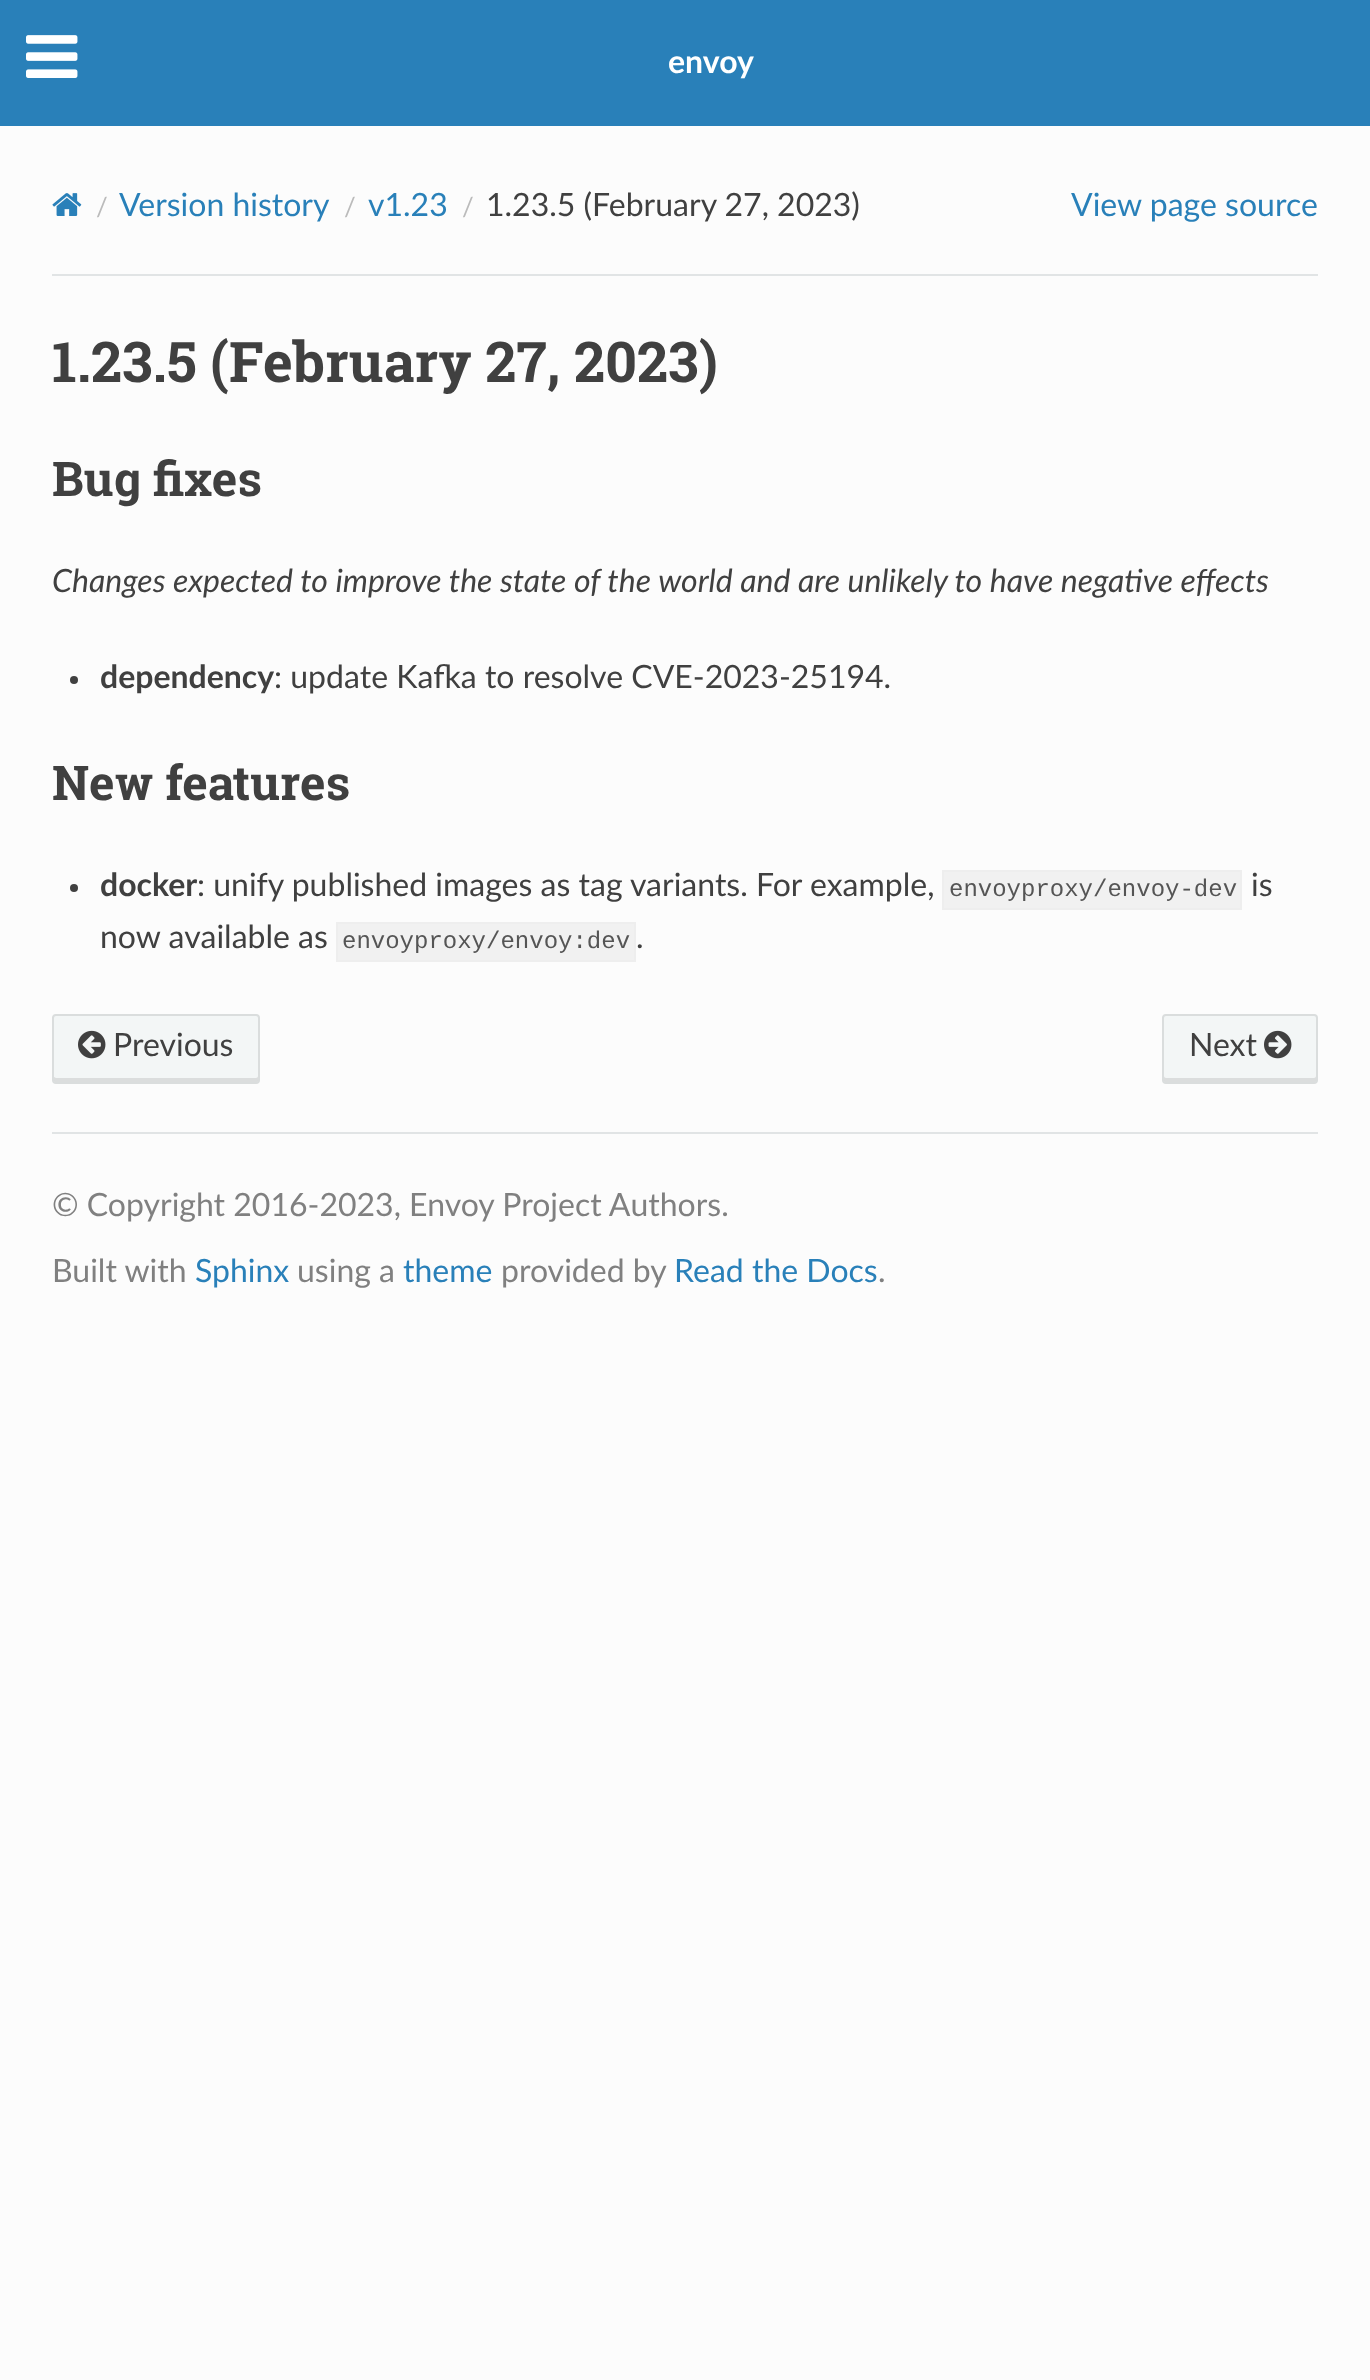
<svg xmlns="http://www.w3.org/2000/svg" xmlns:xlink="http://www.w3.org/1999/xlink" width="1370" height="2380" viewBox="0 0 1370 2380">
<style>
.cls-1{font:bold 32px Lato;fill:#ffffff}
.cls-2{font:26px Lato;fill:#bbbbbb}
.cls-3{font:32px Lato;fill:#2980b9}
.cls-4{font:32px Lato;fill:#404040}
.cls-5{font:bold 56px Roboto Slab;fill:#404040}
.cls-6{font:bold 48px Roboto Slab;fill:#404040}
.cls-7{font:italic 32px Lato;fill:#404040}
.cls-8{font:bold 32px Lato;fill:#404040}
.cls-9{font:24px Liberation Mono;fill:#555555}
.cls-10{font:32px Lato;fill:#808080}
</style>
<rect width="100%" height="100%" fill="#fcfcfc"/>
<rect fill="#2980b9" x="0" y="0" width="1370" height="126"/>
<image xlink:href="image0.png" x="26" y="35" width="52" height="43"/>
<image xlink:href="image1.png" x="52" y="193" width="30" height="23"/>
<rect fill="#e1e4e5" x="52" y="274" width="1266" height="2"/>
<circle fill="#404040" cx="74" cy="680" r="4"/>
<circle fill="#404040" cx="74" cy="888" r="4"/>
<rect fill="#f1f1f1" stroke="#eeeeee" stroke-width="2" x="943" y="871" width="298" height="38"/>
<rect fill="#f1f1f1" stroke="#eeeeee" stroke-width="2" x="337" y="923" width="298" height="38"/>
<rect fill="#f3f6f6" x="52" y="1014" width="208" height="70" rx="4"/>
<path fill="#dbdddd" d="M54 1076V1080C54 1081 55 1082 56 1082H256C257 1082 258 1081 258 1080V1076C258 1077 257 1078 256 1078H56L54 1077Z"/>
<rect fill="none" stroke="#000000" stroke-opacity="0.1" stroke-width="2" x="53" y="1015" width="206" height="68" rx="3"/>
<image xlink:href="image2.png" x="78" y="1030" width="28" height="29"/>
<rect fill="#f3f6f6" x="1162" y="1014" width="156" height="70" rx="4"/>
<path fill="#dbdddd" d="M1164 1076V1080C1164 1081 1165 1082 1166 1082H1314C1315 1082 1316 1081 1316 1080V1076C1316 1077 1315 1078 1314 1078H1166C1165 1078 1164 1077 1164 1076Z"/>
<rect fill="none" stroke="#000000" stroke-opacity="0.1" stroke-width="2" x="1163" y="1015" width="154" height="68" rx="3"/>
<image xlink:href="image3.png" x="1264" y="1030" width="28" height="29"/>
<rect fill="#e1e4e5" x="52" y="1132" width="1266" height="2"/>
<text class="cls-1" x="668" y="73">envoy</text>
<text class="cls-2" x="96" y="216">/</text>
<text class="cls-3" x="119" y="216">Version history</text>
<text class="cls-2" x="344" y="216">/</text>
<text class="cls-3" x="368" y="216">v1.23</text>
<text class="cls-2" x="462" y="216">/</text>
<text class="cls-4" x="486" y="216">1.23.5 (February 27, 2023)</text>
<text class="cls-3" x="1071" y="216">View page source</text>
<text class="cls-5" x="52" y="382">1.23.5 (February 27, 2023)</text>
<text class="cls-6" x="52" y="496">Bug fixes</text>
<text class="cls-7" x="52" y="592">Changes expected to improve the state of the world and are unlikely to have negative effects</text>
<text class="cls-8" x="100" y="688">dependency</text>
<text class="cls-4" x="274" y="688">: update Kafka to resolve CVE-2023-25194.</text>
<text class="cls-6" x="52" y="800">New features</text>
<text class="cls-8" x="100" y="896">docker</text>
<text class="cls-4" x="197" y="896">: unify published images as tag variants. For example,</text>
<text class="cls-9" x="949" y="896">envoyproxy/envoy-dev</text>
<text class="cls-4" x="1251" y="896">is</text>
<text class="cls-4" x="100" y="948">now available as</text>
<text class="cls-9" x="342" y="948">envoyproxy/envoy:dev</text>
<text class="cls-4" x="636" y="948">.</text>
<text class="cls-4" x="113" y="1056">Previous</text>
<text class="cls-4" x="1189" y="1056">Next</text>
<text class="cls-10" x="52" y="1216">© Copyright 2016-2023, Envoy Project Authors.</text>
<text class="cls-10" x="52" y="1282">Built with</text>
<text class="cls-3" x="195" y="1282">Sphinx</text>
<text class="cls-10" x="297" y="1282">using a</text>
<text class="cls-3" x="403" y="1282">theme</text>
<text class="cls-10" x="501" y="1282">provided by</text>
<text class="cls-3" x="674" y="1282">Read the Docs</text>
<text class="cls-10" x="878" y="1282">.</text>
</svg>
